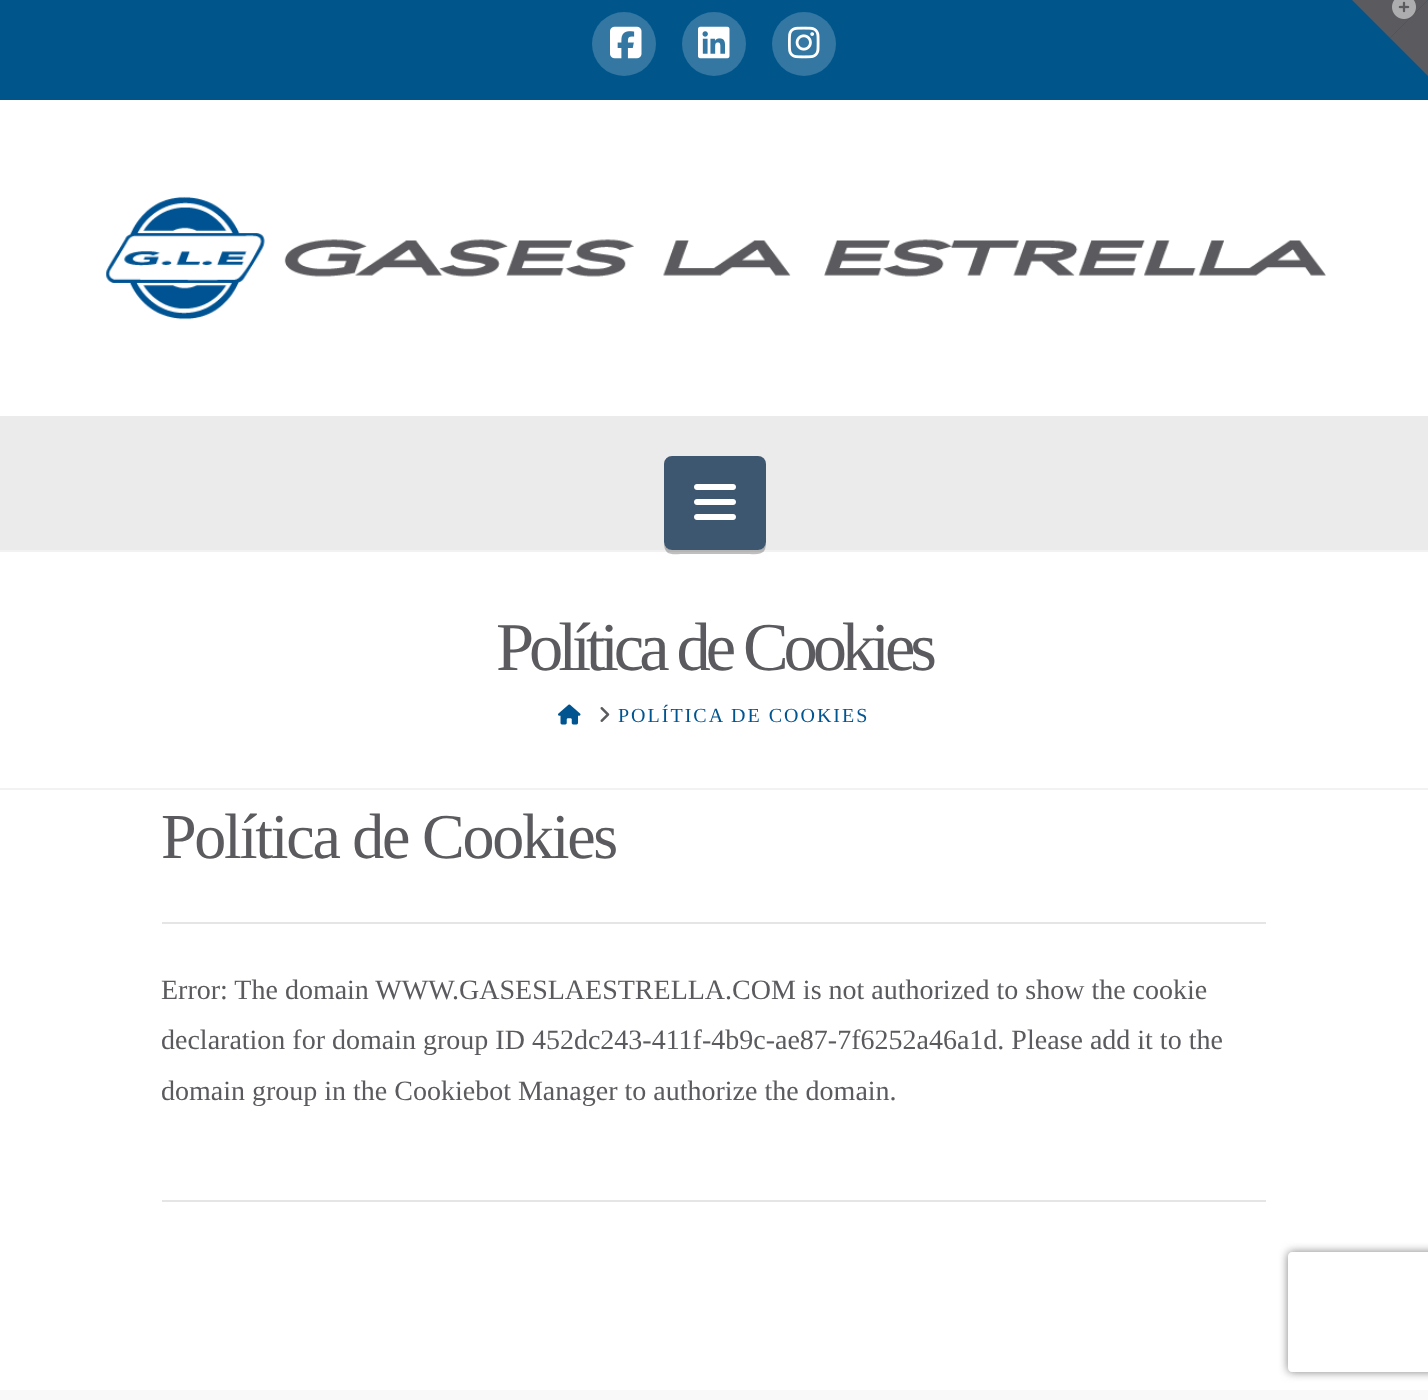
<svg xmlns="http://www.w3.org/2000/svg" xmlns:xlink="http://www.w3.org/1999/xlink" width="1428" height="1400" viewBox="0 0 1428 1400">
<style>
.cls-1{font:68.5px Liberation Serif;letter-spacing:-5.1px;fill:#5b5b5f}
.cls-2{font:20px Liberation Serif;letter-spacing:2px;fill:#00548f}
.cls-3{font:64px Liberation Serif;letter-spacing:-2.25px;fill:#5b5b5f}
.cls-4{font:28px Liberation Serif;fill:#5b5b5f}
</style>
<defs>
<clipPath id="clip1"><path d="M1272 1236H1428V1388H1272ZM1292 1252H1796C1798 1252 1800 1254 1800 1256V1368C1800 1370 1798 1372 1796 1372H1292C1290 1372 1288 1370 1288 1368V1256C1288 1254 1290 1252 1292 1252Z" clip-rule="evenodd"/></clipPath>
</defs>
<rect width="100%" height="100%" fill="#ffffff"/>
<rect fill="#00558b" x="0" y="0" width="1428" height="100"/>
<path fill="#5b5b5f" d="M1352 0H1428L1390 38Z"/>
<path fill="#5b5b5f" d="M1428 0V76L1390 38Z"/>
<image xlink:href="image0.png" x="1392" y="0" width="24" height="19"/>
<circle fill="#3377a2" cx="624" cy="44" r="32"/>
<image xlink:href="image1.png" x="610" y="26" width="32" height="33"/>
<circle fill="#3377a2" cx="714" cy="44" r="32"/>
<image xlink:href="image2.png" x="698" y="26" width="32" height="33"/>
<circle fill="#3377a2" cx="804" cy="44" r="32"/>
<image xlink:href="image3.png" x="788" y="26" width="32" height="33"/>
<image xlink:href="image4.png" x="106" y="196" width="1220" height="124"/>
<rect fill="#ebebeb" x="0" y="416" width="1428" height="134"/>
<rect fill="#f2f2f2" x="0" y="550" width="1428" height="2"/>
<path fill="#000000" fill-opacity="0.25" d="M664 542C664 557 672 554 686 554H744C758 554 766 557 766 542C766 546 762 550 758 550H672C668 550 664 546 664 542Z"/>
<rect fill="#3e5771" x="664" y="456" width="102" height="94" rx="8"/>
<image xlink:href="image5.png" x="694" y="484" width="42" height="36"/>
<rect fill="#f2f2f2" x="0" y="788" width="1428" height="2"/>
<image xlink:href="image6.png" x="558" y="704" width="23" height="21"/>
<image xlink:href="image7.png" x="600" y="707" width="10" height="15"/>
<rect fill="#e5e5e5" x="162" y="922" width="1104" height="2"/>
<rect fill="#e5e5e5" x="162" y="1200" width="1104" height="2"/>
<rect fill="#f9f9f9" x="0" y="1390" width="1428" height="10"/>
<g clip-path="url(#clip1)">
<rect fill="#808080" filter="blur(5px)" x="1288" y="1252" width="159" height="120" rx="4"/>
</g>
<text class="cls-1" x="496" y="670">Política de Cookies</text>
<text class="cls-2" x="618" y="722">POLÍTICA DE COOKIES</text>
<text class="cls-3" x="161" y="858">Política de Cookies</text>
<text class="cls-4"><tspan x="161" y="999">Error: The domain WWW.GASESLAESTRELLA.COM is not authorized to show the cookie</tspan><tspan x="161" y="1049">declaration for domain group ID 452dc243-411f-4b9c-ae87-7f6252a46a1d. Please add it to the</tspan><tspan x="161" y="1100">domain group in the Cookiebot Manager to authorize the domain.</tspan></text>
</svg>
